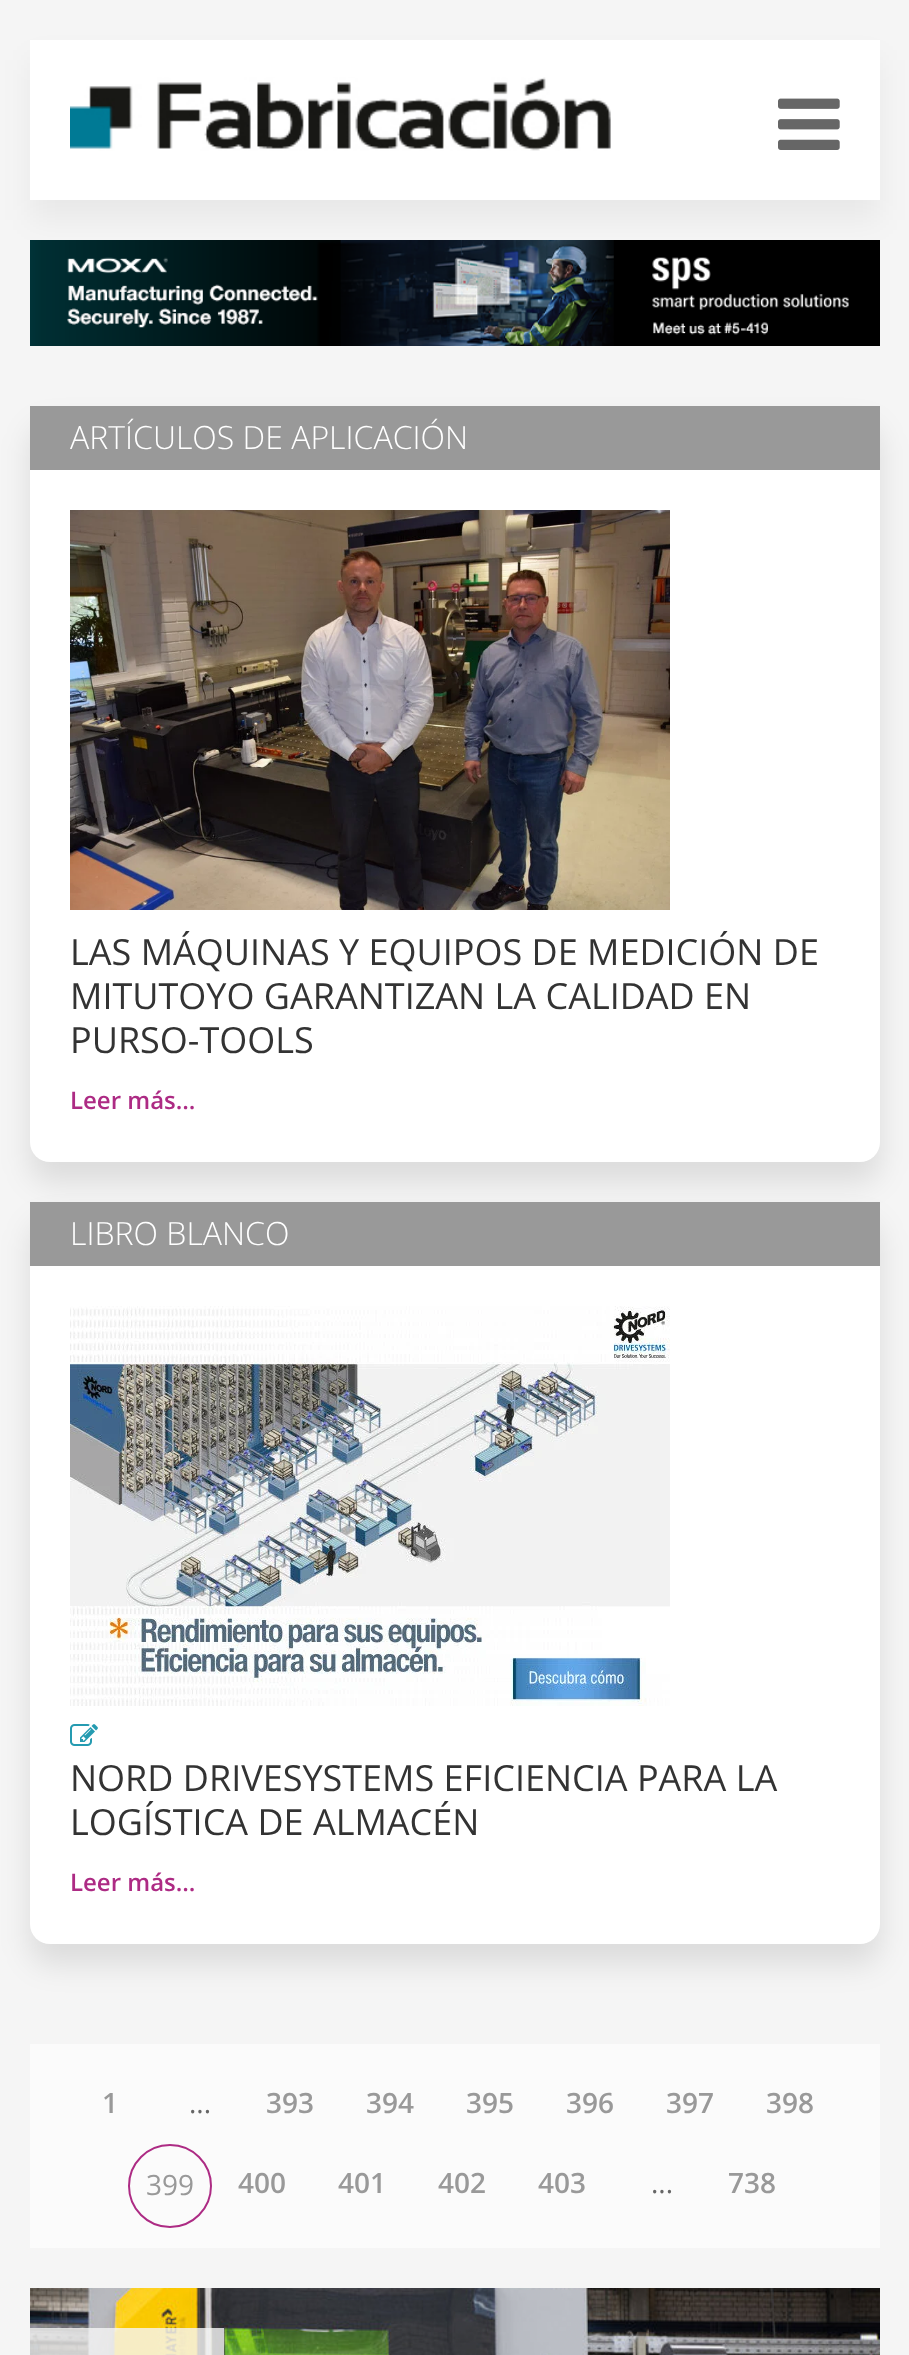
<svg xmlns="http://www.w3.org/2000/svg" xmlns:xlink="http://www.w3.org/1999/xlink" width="909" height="2355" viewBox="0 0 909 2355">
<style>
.cls-1{font:300 32px Open Sans;fill:#ffffff}
.cls-2{font:36px Open Sans;fill:#333333}
.cls-3{font:600 24px Open Sans;fill:#ad2b84}
.cls-4{font:600 28px Open Sans;fill:#999999}
.cls-5{font:28px Open Sans;fill:#666666}
.cls-6{font:28px Open Sans;fill:#999999}
</style>
<rect width="100%" height="100%" fill="#f5f5f5"/>
<rect fill="#000000" fill-opacity="0.05" filter="blur(15px)" x="30" y="60" width="850" height="160"/>
<rect fill="#ffffff" x="30" y="40" width="850" height="160"/>
<image xlink:href="image0.png" x="70" y="77" width="541" height="74"/>
<image xlink:href="image1.png" x="778" y="98" width="62" height="52"/>
<image xlink:href="image2.png" x="30" y="240" width="850" height="106"/>
<rect fill="#000000" fill-opacity="0.1" filter="blur(15px)" x="30" y="426" width="850" height="756" rx="20"/>
<rect fill="#ffffff" x="30" y="406" width="850" height="756" rx="20"/>
<rect fill="#999999" x="30" y="406" width="850" height="64"/>
<image xlink:href="image3.png" x="70" y="510" width="600" height="400"/>
<rect fill="#000000" fill-opacity="0.1" filter="blur(15px)" x="30" y="1222" width="850" height="742" rx="20"/>
<rect fill="#ffffff" x="30" y="1202" width="850" height="742" rx="20"/>
<rect fill="#999999" x="30" y="1202" width="850" height="64"/>
<image xlink:href="image4.png" x="70" y="1306" width="600" height="400"/>
<image xlink:href="image5.png" x="70" y="1724" width="28" height="22"/>
<rect fill="#fbfbfb" x="30" y="2044" width="850" height="204"/>
<circle fill="none" stroke="#ad2b84" stroke-width="2" cx="170" cy="2186" r="41"/>
<image xlink:href="image6.png" x="30" y="2288" width="850" height="67"/>
<rect fill="#f6f6f6" fill-opacity="0.8" x="30" y="2328" width="194" height="27"/>
<text class="cls-1" x="70" y="449">ARTÍCULOS DE APLICACIÓN</text>
<text class="cls-2"><tspan x="70" y="965">LAS MÁQUINAS Y EQUIPOS DE MEDICIÓN DE</tspan><tspan x="70" y="1009">MITUTOYO GARANTIZAN LA CALIDAD EN</tspan><tspan x="70" y="1053">PURSO-TOOLS</tspan></text>
<text class="cls-3" x="70" y="1109">Leer más…</text>
<text class="cls-1" x="70" y="1245">LIBRO BLANCO</text>
<text class="cls-2"><tspan x="70" y="1791">NORD DRIVESYSTEMS EFICIENCIA PARA LA</tspan><tspan x="70" y="1835">LOGÍSTICA DE ALMACÉN</tspan></text>
<text class="cls-3" x="70" y="1891">Leer más…</text>
<text class="cls-4" x="102" y="2113">1</text>
<text class="cls-5" x="189" y="2113">...</text>
<text class="cls-4" x="266" y="2113">393</text>
<text class="cls-4" x="366" y="2113">394</text>
<text class="cls-4" x="466" y="2113">395</text>
<text class="cls-4" x="566" y="2113">396</text>
<text class="cls-4" x="666" y="2113">397</text>
<text class="cls-4" x="766" y="2113">398</text>
<text class="cls-6" x="146" y="2195">399</text>
<text class="cls-4" x="238" y="2193">400</text>
<text class="cls-4" x="338" y="2193">401</text>
<text class="cls-4" x="438" y="2193">402</text>
<text class="cls-4" x="538" y="2193">403</text>
<text class="cls-5" x="651" y="2193">...</text>
<text class="cls-4" x="728" y="2193">738</text>
</svg>
